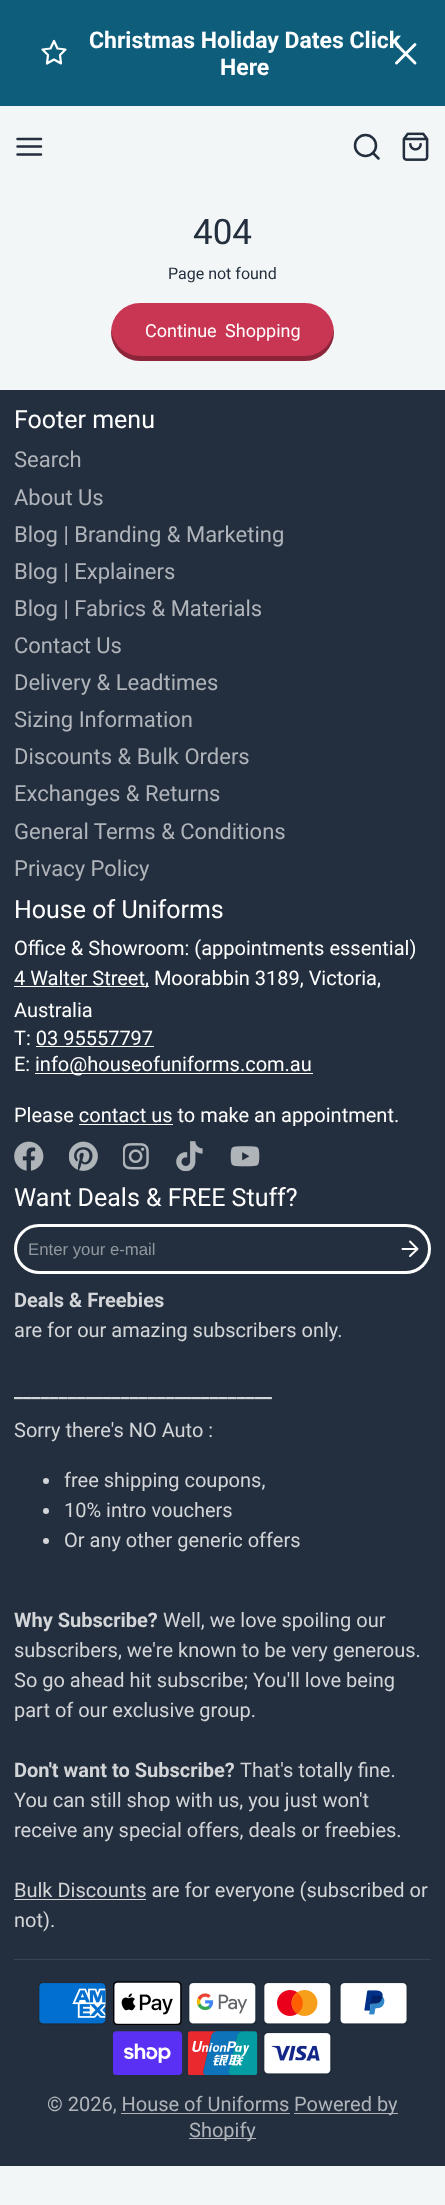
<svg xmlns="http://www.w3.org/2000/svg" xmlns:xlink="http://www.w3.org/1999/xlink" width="445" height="2205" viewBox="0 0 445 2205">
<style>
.cls-1{font:bold 23px Roboto;fill:#ffffff}
.cls-2{font:35px Roboto;fill:#232f3e}
.cls-3{font:16px Roboto;fill:#232f3e}
.cls-4{font:18px Roboto;fill:#ffffff}
.cls-5{font:25px Roboto;fill:#ffffff}
.cls-6{font:22px Roboto;fill:#b0b4ba}
.cls-7{font:20px Roboto;fill:#ffffff}
.cls-8{font:16.75px Liberation Sans;fill:#91979f}
.cls-9{font:bold 20px Roboto;fill:#d3d5d8}
.cls-10{font:20px Roboto;fill:#d3d5d8}
.cls-11{font:20px Roboto;fill:#b0b4ba}
</style>
<rect width="100%" height="100%" fill="#f3f6f6"/>
<rect fill="#0e5d7b" x="0" y="0" width="445" height="106"/>
<path fill="none" stroke="#ffffff" stroke-width="2.2" stroke-linecap="round" stroke-linejoin="round" d="M54 41L57.5 48.5L65.5 49.5L60 55L61 63.5L54 59.5L47 63.5L48 55L42.5 49.5L50.5 48.5Z"/>
<path fill="none" stroke="#ffffff" stroke-width="2.9" stroke-linecap="round" stroke-linejoin="round" d="M415 44.5L396.5 63M396.5 44.5L415 63"/>
<path fill="none" stroke="#232f3e" stroke-width="2.5" stroke-linecap="round" stroke-linejoin="round" d="M17.5 146.5H41M17.5 139H41M17.5 154.5H41"/>
<circle fill="none" stroke="#232f3e" stroke-width="2.5" cx="365.5" cy="145.5" r="10.5"/>
<path fill="none" stroke="#232f3e" stroke-width="2.5" stroke-linecap="round" stroke-linejoin="round" d="M378.5 158.5L373 153"/>
<image xlink:href="image0.png" x="402" y="132" width="27" height="29"/>
<rect fill="#c93653" x="111" y="303" width="223" height="58" rx="29"/>
<path fill="#000000" fill-opacity="0.3" d="M111 329V332C111 348 124 361 140 361H305C321 361 334 348 334 332V329C332 345 320 356 304 356H141C125 356 113 345 111 329Z"/>
<rect fill="#232f3e" x="0" y="390" width="445" height="1776"/>
<rect fill="#ffffff" x="14" y="986" width="135" height="1"/>
<rect fill="#ffffff" x="36" y="1046" width="118" height="1"/>
<rect fill="#ffffff" x="35" y="1073" width="278" height="1"/>
<rect fill="#ffffff" x="79" y="1124" width="94" height="1"/>
<image xlink:href="image1.png" x="14" y="1141" width="30" height="30"/>
<image xlink:href="image2.png" x="69" y="1141" width="29" height="30"/>
<image xlink:href="image3.png" x="123" y="1143" width="26" height="27"/>
<image xlink:href="image4.png" x="176" y="1141" width="27" height="30"/>
<image xlink:href="image5.png" x="230" y="1146" width="30" height="21"/>
<rect fill="none" stroke="#ffffff" stroke-width="3" x="15.5" y="1225.5" width="414" height="47" rx="23.5"/>
<path fill="none" stroke="#ffffff" stroke-width="2" stroke-linecap="round" stroke-linejoin="round" d="M402.5 1249H416M410 1241.5L417.5 1249L410 1256"/>
<circle fill="#d3d5d8" cx="46" cy="1481" r="3"/>
<circle fill="#d3d5d8" cx="46" cy="1511" r="3"/>
<circle fill="#d3d5d8" cx="46" cy="1541" r="3"/>
<rect fill="#d3d5d8" x="14" y="1899" width="132" height="1"/>
<rect fill="#394451" x="14" y="1959" width="417" height="1"/>
<image xlink:href="image6.png" x="38" y="1982" width="68" height="43"/>
<image xlink:href="image7.png" x="113" y="1981" width="69" height="44"/>
<image xlink:href="image8.png" x="188" y="1982" width="69" height="43"/>
<image xlink:href="image9.png" x="263" y="1982" width="69" height="43"/>
<image xlink:href="image10.png" x="339" y="1982" width="69" height="43"/>
<image xlink:href="image11.png" x="113" y="2031" width="70" height="44"/>
<image xlink:href="image12.png" x="188" y="2031" width="70" height="44"/>
<image xlink:href="image13.png" x="263" y="2032" width="69" height="43"/>
<rect fill="#b0b4ba" x="294" y="2113" width="104" height="1"/>
<rect fill="#b0b4ba" x="121" y="2113" width="169" height="1"/>
<rect fill="#b0b4ba" x="189" y="2138" width="67" height="1"/>
<text class="cls-1" x="89" y="48">Christmas Holiday Dates Click</text>
<text class="cls-1" x="220" y="75">Here</text>
<text class="cls-2" x="193" y="244">404</text>
<text class="cls-3" x="168" y="279">Page not found</text>
<text class="cls-4" x="145" y="337" word-spacing="4">Continue Shopping</text>
<text class="cls-5" x="14" y="428">Footer menu</text>
<text class="cls-6"><tspan x="14" y="467">Search</tspan><tspan x="14" y="505">About Us</tspan><tspan x="14" y="542">Blog | Branding &amp; Marketing</tspan><tspan x="14" y="579">Blog | Explainers</tspan><tspan x="14" y="616">Blog | Fabrics &amp; Materials</tspan><tspan x="14" y="653">Contact Us</tspan><tspan x="14" y="690">Delivery &amp; Leadtimes</tspan><tspan x="14" y="727">Sizing Information</tspan><tspan x="14" y="764">Discounts &amp; Bulk Orders</tspan><tspan x="14" y="801">Exchanges &amp; Returns</tspan><tspan x="14" y="839">General Terms &amp; Conditions</tspan><tspan x="14" y="876">Privacy Policy</tspan></text>
<text class="cls-5" x="14" y="918">House of Uniforms</text>
<text class="cls-7"><tspan x="14" y="955">Office &amp; Showroom: (appointments essential)</tspan><tspan x="14" y="985">4 Walter Street, Moorabbin 3189, Victoria,</tspan><tspan x="14" y="1017">Australia</tspan><tspan x="14" y="1045">T: 03 95557797</tspan><tspan x="14" y="1071">E:</tspan></text>
<text class="cls-7" x="35" y="1071">info@houseofuniforms.com.au</text>
<text class="cls-7" x="14" y="1122">Please contact us to make an appointment.</text>
<text class="cls-5" x="14" y="1206">Want Deals &amp; FREE Stuff?</text>
<text class="cls-8" x="28" y="1255">Enter your e-mail</text>
<text class="cls-9" x="14" y="1307">Deals &amp; Freebies</text>
<text class="cls-10" x="14" y="1337">are for our amazing subscribers only.</text>
<text class="cls-9" x="14" y="1397">_____________________________</text>
<text class="cls-10" x="14" y="1437">Sorry there's NO Auto :</text>
<text class="cls-10"><tspan x="64" y="1487">free shipping coupons,</tspan><tspan x="64" y="1517">10% intro vouchers</tspan><tspan x="64" y="1547">Or any other generic offers</tspan></text>
<text class="cls-9" x="14" y="1627">Why Subscribe?</text>
<text class="cls-10" x="163" y="1627">Well, we love spoiling our</text>
<text class="cls-10"><tspan x="14" y="1657">subscribers, we're known to be very generous.</tspan><tspan x="14" y="1687">So go ahead hit subscribe; You'll love being</tspan><tspan x="14" y="1717">part of our exclusive group.</tspan></text>
<text class="cls-9" x="14" y="1777">Don't want to Subscribe?</text>
<text class="cls-10" x="240" y="1777">That's totally fine.</text>
<text class="cls-10"><tspan x="14" y="1807">You can still shop with us, you just won't</tspan><tspan x="14" y="1837">receive any special offers, deals or freebies.</tspan></text>
<text class="cls-10"><tspan x="14" y="1897">Bulk Discounts are for everyone (subscribed or</tspan><tspan x="14" y="1927">not).</tspan></text>
<text class="cls-11" x="47" y="2111">© 2026, House of Uniforms</text>
<text class="cls-11" x="294" y="2111">Powered by</text>
<text class="cls-11" x="189" y="2137">Shopify</text>
</svg>
